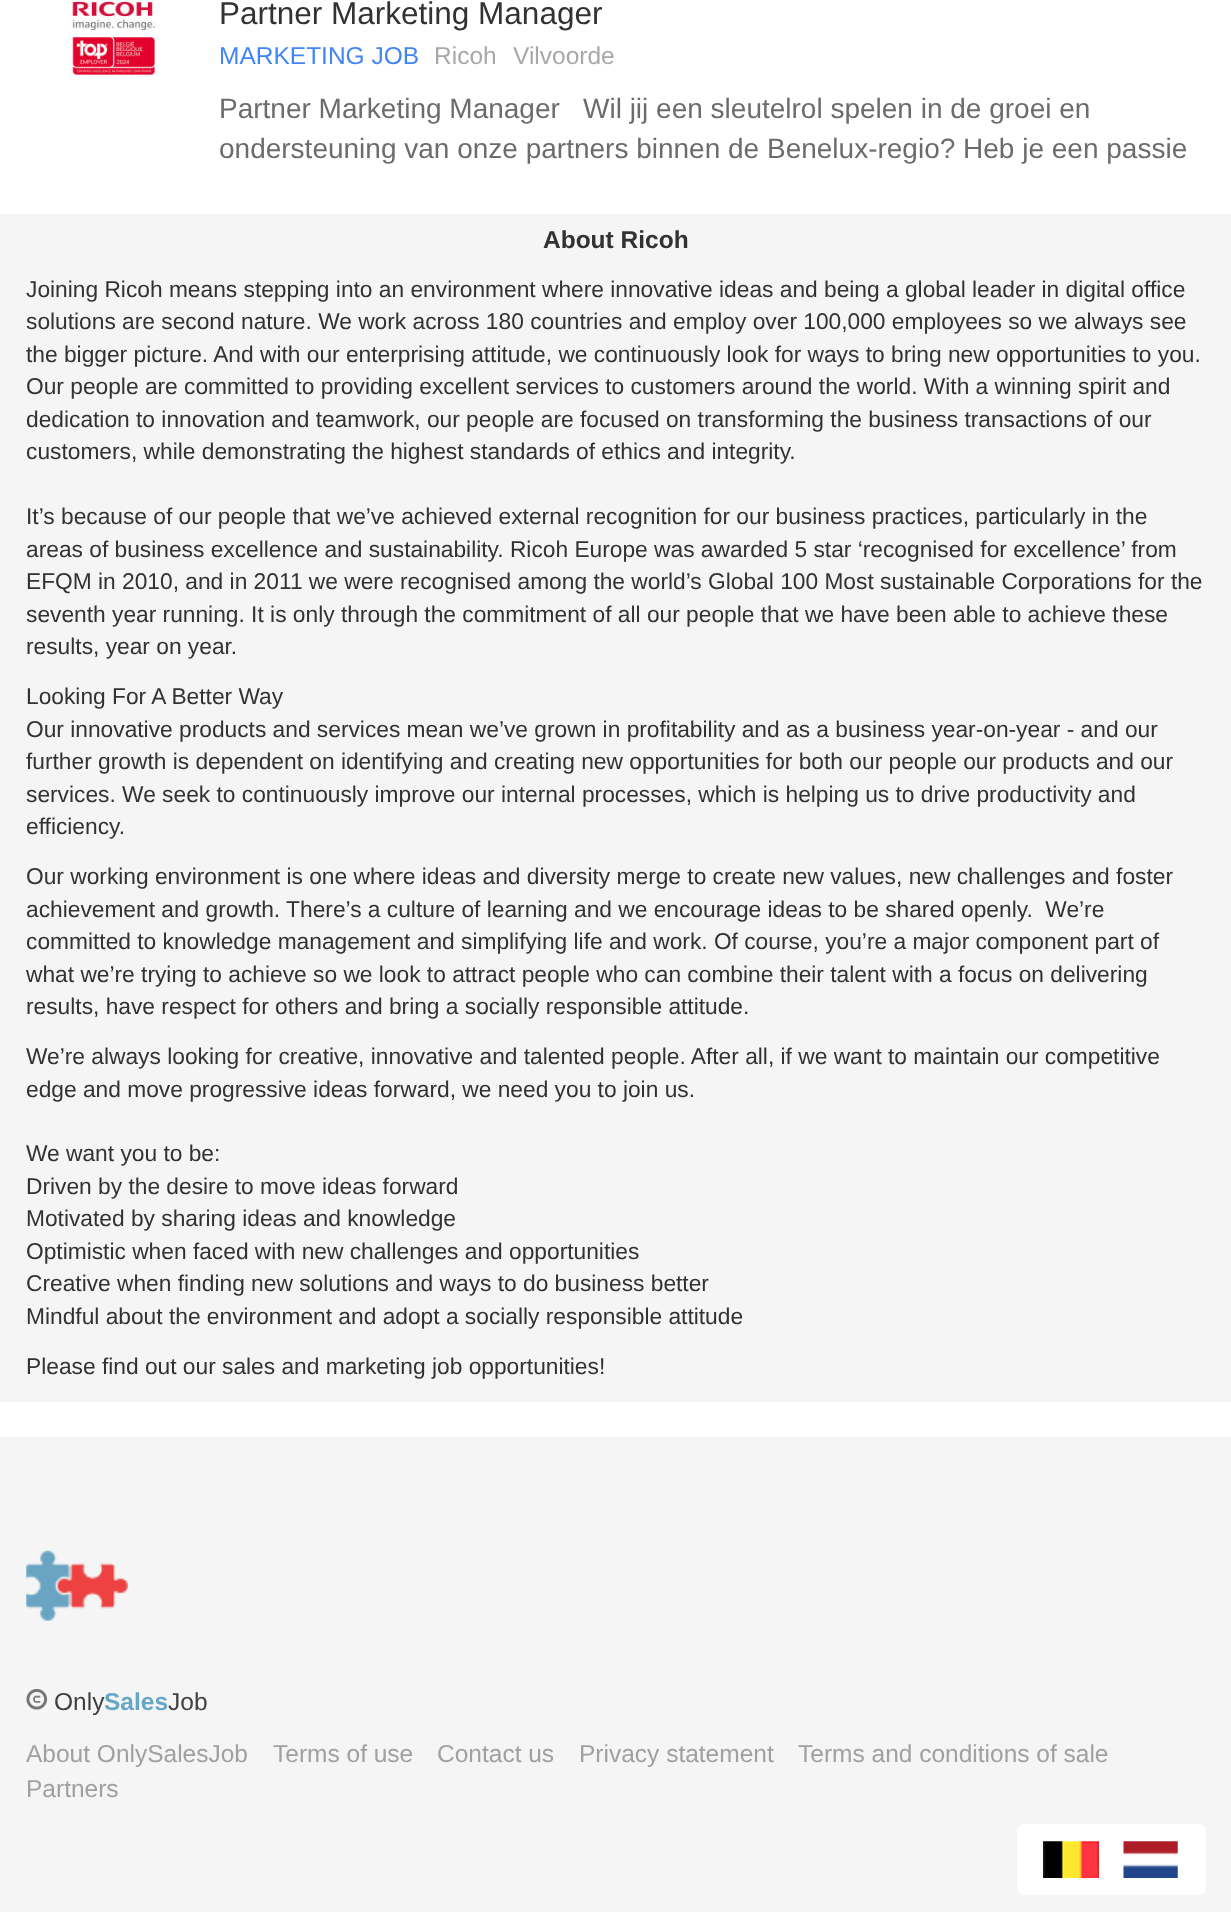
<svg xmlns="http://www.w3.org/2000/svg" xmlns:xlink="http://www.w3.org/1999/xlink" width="1231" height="1912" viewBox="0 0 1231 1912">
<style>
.cls-1{font:31.5px Liberation Sans;fill:#323232}
.cls-2{font:24.5px Liberation Sans;fill:#4285f4}
.cls-3{font:24.5px Liberation Sans;fill:#a8a8a8}
.cls-4{font:28px Liberation Sans;fill:#6c6c6c}
.cls-5{font:bold 24.5px Liberation Sans;fill:#323232}
.cls-6{font:22.75px Liberation Sans;fill:#323232}
.cls-7{font:24.5px Liberation Sans;fill:#404040}
.cls-8{font:bold 24.5px Liberation Sans;fill:#66a7c5}
.cls-9{font:24.5px Liberation Sans;fill:#a0a0a0}
</style>
<rect width="100%" height="100%" fill="#ffffff"/>
<image xlink:href="image0.png" x="68" y="0" width="91" height="78"/>
<rect fill="#f5f5f5" x="0" y="214" width="1231" height="1188"/>
<rect fill="#f5f5f5" x="0" y="1437" width="1231" height="475"/>
<image xlink:href="image1.png" x="26" y="1550" width="102" height="71"/>
<image xlink:href="image2.png" x="26" y="1688" width="22" height="22"/>
<rect fill="#ffffff" x="1017" y="1824" width="189" height="71" rx="7"/>
<image xlink:href="image3.png" x="1043" y="1841" width="56" height="37"/>
<image xlink:href="image4.png" x="1123" y="1841" width="55" height="37"/>
<text class="cls-1" x="219" y="24">Partner Marketing Manager</text>
<text class="cls-2" x="219" y="64">MARKETING JOB</text>
<text class="cls-3" x="434" y="64">Ricoh</text>
<text class="cls-3" x="513" y="64">Vilvoorde</text>
<text class="cls-4" x="219" y="118">Partner Marketing Manager</text>
<text class="cls-4" x="583" y="118">Wil jij een sleutelrol spelen in de groei en</text>
<text class="cls-4" x="219" y="158">ondersteuning van onze partners binnen de Benelux-regio? Heb je een passie</text>
<text class="cls-5" x="543" y="248">About Ricoh</text>
<text class="cls-6"><tspan x="26" y="297">Joining Ricoh means stepping into an environment where innovative ideas and being a global leader in digital office</tspan><tspan x="26" y="329">solutions are second nature. We work across 180 countries and employ over 100,000 employees so we always see</tspan><tspan x="26" y="362">the bigger picture. And with our enterprising attitude, we continuously look for ways to bring new opportunities to you.</tspan><tspan x="26" y="394">Our people are committed to providing excellent services to customers around the world. With a winning spirit and</tspan><tspan x="26" y="427">dedication to innovation and teamwork, our people are focused on transforming the business transactions of our</tspan><tspan x="26" y="459">customers, while demonstrating the highest standards of ethics and integrity.</tspan></text>
<text class="cls-6"><tspan x="26" y="524">It’s because of our people that we’ve achieved external recognition for our business practices, particularly in the</tspan><tspan x="26" y="557">areas of business excellence and sustainability. Ricoh Europe was awarded 5 star ‘recognised for excellence’ from</tspan><tspan x="26" y="589">EFQM in 2010, and in 2011 we were recognised among the world’s Global 100 Most sustainable Corporations for the</tspan><tspan x="26" y="622">seventh year running. It is only through the commitment of all our people that we have been able to achieve these</tspan><tspan x="26" y="654">results, year on year.</tspan></text>
<text class="cls-6"><tspan x="26" y="704">Looking For A Better Way</tspan><tspan x="26" y="737">Our innovative products and services mean we’ve grown in profitability and as a business year-on-year - and our</tspan><tspan x="26" y="769">further growth is dependent on identifying and creating new opportunities for both our people our products and our</tspan><tspan x="26" y="802">services. We seek to continuously improve our internal processes, which is helping us to drive productivity and</tspan><tspan x="26" y="834">efficiency.</tspan></text>
<text class="cls-6" xml:space="preserve"><tspan x="26" y="884">Our working environment is one where ideas and diversity merge to create new values, new challenges and foster</tspan><tspan x="26" y="917">achievement and growth. There’s a culture of learning and we encourage ideas to be shared openly.  We’re</tspan><tspan x="26" y="949">committed to knowledge management and simplifying life and work. Of course, you’re a major component part of</tspan><tspan x="26" y="982">what we’re trying to achieve so we look to attract people who can combine their talent with a focus on delivering</tspan><tspan x="26" y="1014">results, have respect for others and bring a socially responsible attitude.</tspan></text>
<text class="cls-6"><tspan x="26" y="1064">We’re always looking for creative, innovative and talented people. After all, if we want to maintain our competitive</tspan><tspan x="26" y="1097">edge and move progressive ideas forward, we need you to join us.</tspan></text>
<text class="cls-6"><tspan x="26" y="1161">We want you to be:</tspan><tspan x="26" y="1194">Driven by the desire to move ideas forward</tspan><tspan x="26" y="1226">Motivated by sharing ideas and knowledge</tspan><tspan x="26" y="1259">Optimistic when faced with new challenges and opportunities</tspan><tspan x="26" y="1291">Creative when finding new solutions and ways to do business better</tspan><tspan x="26" y="1324">Mindful about the environment and adopt a socially responsible attitude</tspan></text>
<text class="cls-6" x="26" y="1374">Please find out our sales and marketing job opportunities!</text>
<text class="cls-7" x="54" y="1710">Only</text>
<text class="cls-8" x="104" y="1710">Sales</text>
<text class="cls-7" x="168" y="1710">Job</text>
<text class="cls-9" x="26" y="1762">About OnlySalesJob</text>
<text class="cls-9" x="273" y="1762">Terms of use</text>
<text class="cls-9" x="437" y="1762">Contact us</text>
<text class="cls-9" x="579" y="1762">Privacy statement</text>
<text class="cls-9" x="798" y="1762">Terms and conditions of sale</text>
<text class="cls-9" x="26" y="1797">Partners</text>
</svg>
